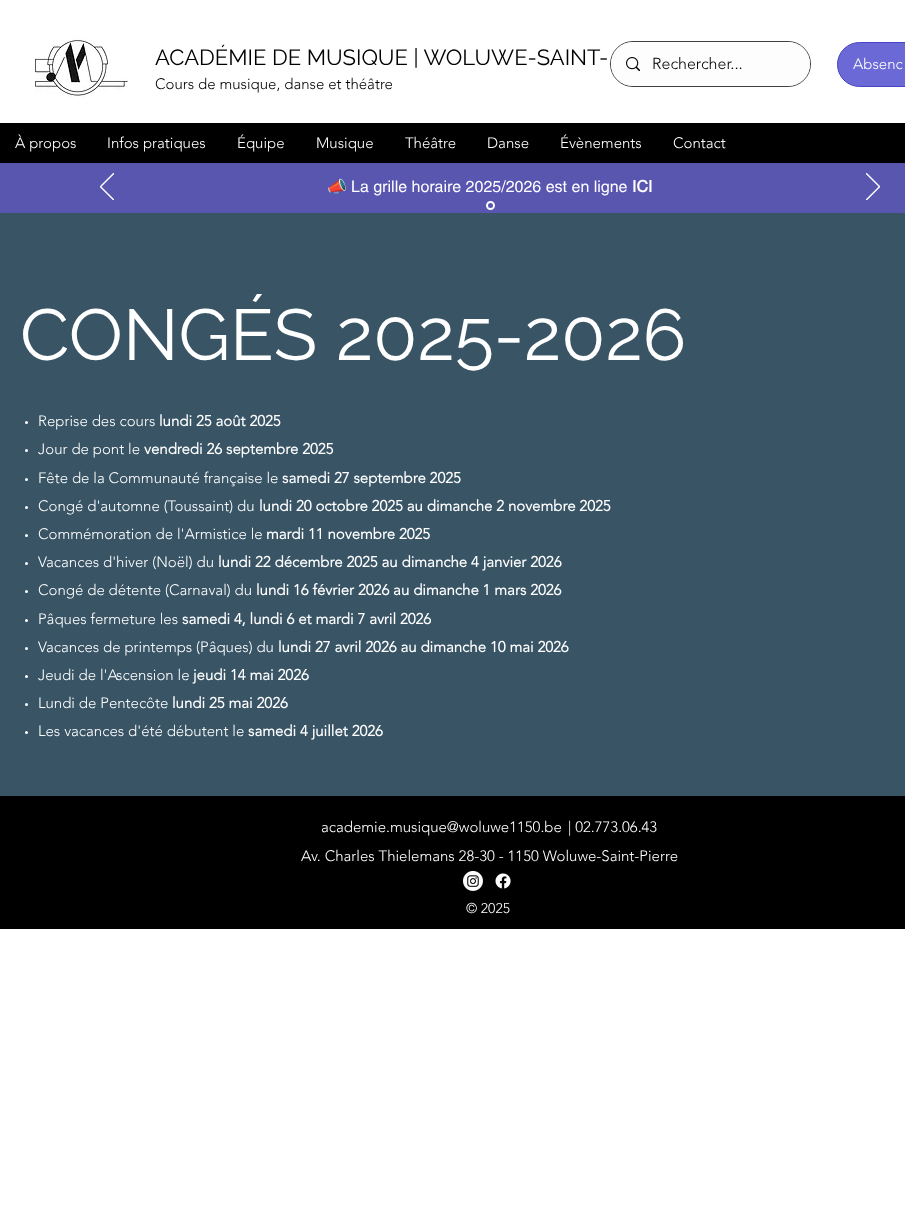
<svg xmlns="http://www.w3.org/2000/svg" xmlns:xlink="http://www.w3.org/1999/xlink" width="905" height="1217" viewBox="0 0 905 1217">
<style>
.cls-1{font:22px Raleway;fill:#000000}
.cls-2{font:300 15px 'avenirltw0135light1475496';fill:#000000}
.cls-3{font:300 16px 'avenirltw0135light1475496';fill:#000000}
.cls-4{font:300 15px 'avenirltw0135light1475496';fill:#ffffff}
.cls-5{font:16px Noto Color Emoji;fill:#ffffff}
.cls-6{font:16px helvetica;fill:#ffffff}
.cls-7{font:bold 16px helvetica;fill:#ffffff}
.cls-8{font:72px Raleway;fill:#ffffff}
.cls-9{font:bold 15px 'avenirltw0135light1475496';fill:#ffffff}
.cls-10{font:300 14px 'avenirltw0135light1475496';fill:#ffffff}
</style>
<rect width="100%" height="100%" fill="#ffffff"/>
<image xlink:href="image0.png" x="35" y="38" width="94" height="60"/>
<rect fill="none" stroke="#404040" x="610.5" y="41.5" width="200" height="45" rx="22.5"/>
<rect fill="#fdfdfd" x="611" y="42" width="199" height="44" rx="22"/>
<image xlink:href="image1.png" x="626" y="57" width="14" height="14"/>
<rect fill="#6b69d6" stroke="#4743c5" x="837.5" y="42.5" width="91" height="44" rx="22"/>
<rect fill="#000000" x="0" y="123" width="905" height="40"/>
<rect fill="#5956b0" x="0" y="163" width="905" height="50"/>
<image xlink:href="image2.png" x="100" y="173" width="14" height="27"/>
<image xlink:href="image3.png" x="866" y="173" width="14" height="27"/>
<circle fill="none" stroke="#ffffff" stroke-width="2" cx="490.5" cy="205.5" r="3.5"/>
<rect fill="#385465" x="0" y="213" width="905" height="583"/>
<circle fill="#ffffff" cx="26.5" cy="422.5" r="1.5"/>
<circle fill="#ffffff" cx="26.5" cy="450.5" r="1.5"/>
<circle fill="#ffffff" cx="26.5" cy="479.5" r="1.5"/>
<circle fill="#ffffff" cx="26.5" cy="507.5" r="1.5"/>
<circle fill="#ffffff" cx="26.5" cy="535.5" r="1.5"/>
<circle fill="#ffffff" cx="26.5" cy="563.5" r="1.5"/>
<circle fill="#ffffff" cx="26.5" cy="591.5" r="1.5"/>
<circle fill="#ffffff" cx="26.5" cy="620.5" r="1.5"/>
<circle fill="#ffffff" cx="26.5" cy="648.5" r="1.5"/>
<circle fill="#ffffff" cx="26.5" cy="676.5" r="1.5"/>
<circle fill="#ffffff" cx="26.5" cy="704.5" r="1.5"/>
<circle fill="#ffffff" cx="26.5" cy="732.5" r="1.5"/>
<rect fill="#000000" x="0" y="796" width="905" height="133"/>
<image xlink:href="image4.png" x="463" y="871" width="20" height="20"/>
<image xlink:href="image5.png" x="495" y="873" width="16" height="16"/>
<text class="cls-1" x="155" y="65">ACADÉMIE DE MUSIQUE | WOLUWE-SAINT-</text>
<text class="cls-2" x="155" y="89">Cours de musique, danse et théâtre</text>
<text class="cls-3" x="652" y="69">Rechercher...</text>
<text class="cls-4" x="853" y="69">Absenc</text>
<text class="cls-4" x="15" y="148">À propos</text>
<text class="cls-4" x="107" y="148">Infos pratiques</text>
<text class="cls-4" x="237" y="148">Équipe</text>
<text class="cls-4" x="316" y="148">Musique</text>
<text class="cls-4" x="405" y="148">Théâtre</text>
<text class="cls-4" x="487" y="148">Danse</text>
<text class="cls-4" x="560" y="148">Évènements</text>
<text class="cls-4" x="673" y="148">Contact</text>
<text class="cls-5" x="327" y="192">📣</text>
<text class="cls-6" x="351" y="192">La grille horaire 2025/2026 est en ligne</text>
<text class="cls-7" x="632" y="192">ICI</text>
<text class="cls-8" x="20" y="360">CONGÉS 2025-2026</text>
<text class="cls-4" x="38" y="426">Reprise des cours</text>
<text class="cls-9" x="159" y="426">lundi 25 août 2025</text>
<text class="cls-4" x="38" y="454">Jour de pont le</text>
<text class="cls-9" x="144" y="454">vendredi 26 septembre 2025</text>
<text class="cls-4" x="38" y="483">Fête de la Communauté française le</text>
<text class="cls-9" x="282" y="483">samedi 27 septembre 2025</text>
<text class="cls-4" x="38" y="511">Congé d'automne (Toussaint) du</text>
<text class="cls-9" x="259" y="511">lundi 20 octobre 2025 au dimanche 2 novembre 2025</text>
<text class="cls-4" x="38" y="539">Commémoration de l'Armistice le</text>
<text class="cls-9" x="266" y="539">mardi 11 novembre 2025</text>
<text class="cls-4" x="38" y="567">Vacances d'hiver (Noël) du</text>
<text class="cls-9" x="218" y="567">lundi 22 décembre 2025 au dimanche 4 janvier 2026</text>
<text class="cls-4" x="38" y="595">Congé de détente (Carnaval) du</text>
<text class="cls-9" x="256" y="595">lundi 16 février 2026 au dimanche 1 mars 2026</text>
<text class="cls-4" x="38" y="624">Pâques fermeture les</text>
<text class="cls-9" x="182" y="624">samedi 4, lundi 6 et mardi 7 avril 2026</text>
<text class="cls-4" x="38" y="652">Vacances de printemps (Pâques) du</text>
<text class="cls-9" x="278" y="652">lundi 27 avril 2026 au dimanche 10 mai 2026</text>
<text class="cls-4" x="38" y="680">Jeudi de l'Ascension le</text>
<text class="cls-9" x="193" y="680">jeudi 14 mai 2026</text>
<text class="cls-4" x="38" y="708">Lundi de Pentecôte</text>
<text class="cls-9" x="172" y="708">lundi 25 mai 2026</text>
<text class="cls-4" x="38" y="736">Les vacances d'été débutent le</text>
<text class="cls-9" x="248" y="736">samedi 4 juillet 2026</text>
<text class="cls-4" x="321" y="832">academie.musique@woluwe1150.be</text>
<text class="cls-4" x="568" y="832">| 02.773.06.43</text>
<text class="cls-4" x="301" y="861">Av. Charles Thielemans 28-30 - 1150 Woluwe-Saint-Pierre</text>
<text class="cls-10" x="466" y="913">© 2025</text>
</svg>
